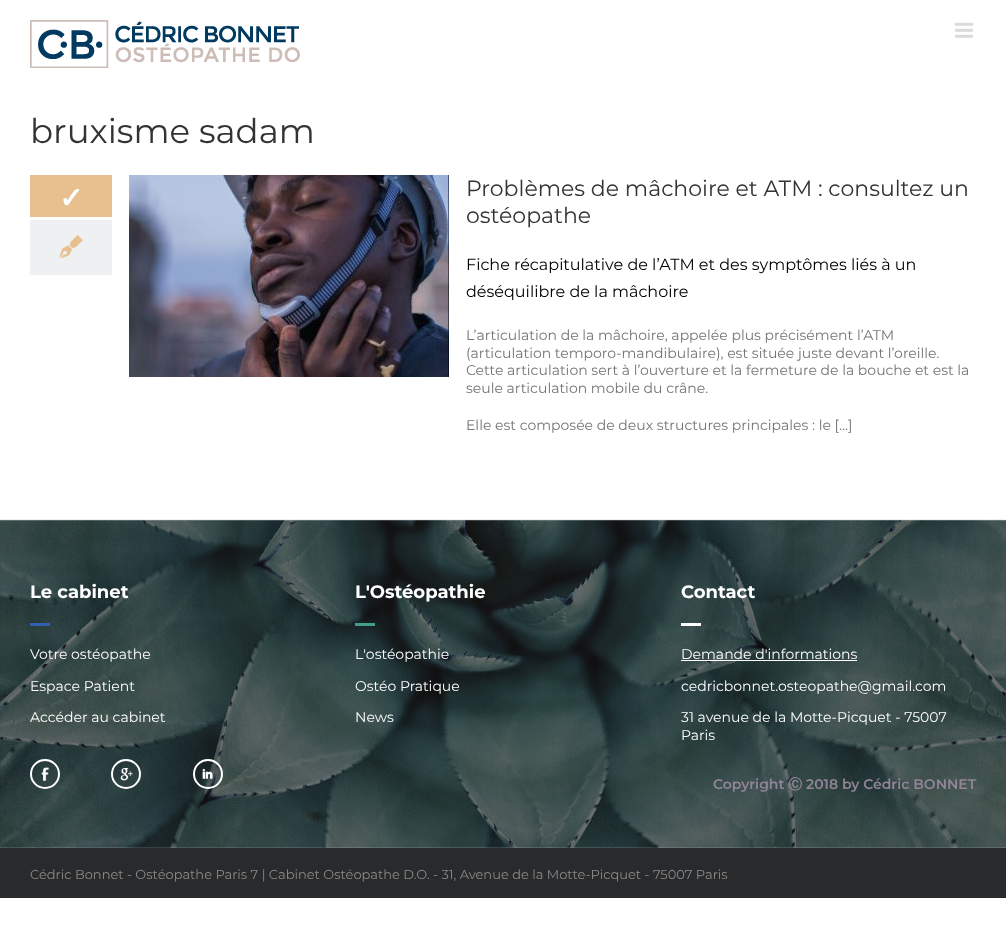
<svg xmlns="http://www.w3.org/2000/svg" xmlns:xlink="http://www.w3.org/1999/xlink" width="1006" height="937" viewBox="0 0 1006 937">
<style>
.cls-1{font:34px Montserrat;fill:#333333}
.cls-2{font:bold 29px DejaVu Sans;fill:#ffffff}
.cls-3{font:22px Montserrat;fill:#333333}
.cls-4{font:16px Montserrat;fill:#000000}
.cls-5{font:14px Montserrat;fill:#747474}
.cls-6{font:bold 18px Montserrat;fill:#ffffff}
.cls-7{font:14px Montserrat;fill:#ffffff}
.cls-8{font:600 14px Montserrat;fill:#918597}
.cls-9{font:bold 14px WenQuanYi Zen Hei;fill:#918597}
.cls-10{font:13px Montserrat;fill:#8c8989}
</style>
<rect width="100%" height="100%" fill="#ffffff"/>
<image xlink:href="image0.png" x="30" y="20" width="270" height="48"/>
<image xlink:href="image1.png" x="955" y="22" width="18" height="16"/>
<rect fill="#e8c090" x="30" y="175" width="82" height="42"/>
<rect fill="#eef0f2" x="30" y="220" width="82" height="55"/>
<image xlink:href="image2.png" x="59" y="235" width="24" height="24"/>
<image xlink:href="image3.png" x="129" y="175" width="320" height="202"/>
<image xlink:href="image4.png" x="0" y="519" width="1006" height="329"/>
<rect fill="#335faf" x="30" y="623" width="20" height="3"/>
<circle fill="none" stroke="#ffffff" stroke-width="2" cx="45" cy="774" r="14"/>
<image xlink:href="image5.png" x="41" y="767" width="8" height="14"/>
<circle fill="none" stroke="#ffffff" stroke-width="2" cx="126" cy="774" r="14"/>
<image xlink:href="image6.png" x="120" y="768" width="13" height="13"/>
<circle fill="none" stroke="#ffffff" stroke-width="2" cx="208" cy="774" r="14"/>
<image xlink:href="image7.png" x="202" y="768" width="11" height="11"/>
<rect fill="#429e8c" x="355" y="623" width="20" height="3"/>
<rect fill="#ffffff" x="681" y="623" width="20" height="3"/>
<rect fill="#ffffff" x="681" y="660" width="176" height="1"/>
<rect fill="#282a2b" x="0" y="848" width="1006" height="50"/>
<text class="cls-1" x="30" y="143">bruxisme sadam</text>
<text class="cls-2" x="59" y="208">✓</text>
<text class="cls-3"><tspan x="466" y="196">Problèmes de mâchoire et ATM : consultez un</tspan><tspan x="466" y="223">ostéopathe</tspan></text>
<text class="cls-4"><tspan x="466" y="270">Fiche récapitulative de l’ATM et des symptômes liés à un</tspan><tspan x="466" y="297">déséquilibre de la mâchoire</tspan></text>
<text class="cls-5"><tspan x="466" y="340">L’articulation de la mâchoire, appelée plus précisément l’ATM</tspan><tspan x="466" y="358">(articulation temporo-mandibulaire), est située juste devant l’oreille.</tspan><tspan x="466" y="375">Cette articulation sert à l’ouverture et la fermeture de la bouche et est la</tspan><tspan x="466" y="393">seule articulation mobile du crâne.</tspan></text>
<text class="cls-5" x="466" y="430">Elle est composée de deux structures principales : le […]</text>
<text class="cls-6" x="30" y="598">Le cabinet</text>
<text class="cls-7" x="30" y="659">Votre ostéopathe</text>
<text class="cls-7" x="30" y="691">Espace Patient</text>
<text class="cls-7" x="30" y="722">Accéder au cabinet</text>
<text class="cls-6" x="355" y="598">L'Ostéopathie</text>
<text class="cls-7" x="355" y="659">L'ostéopathie</text>
<text class="cls-7" x="355" y="691">Ostéo Pratique</text>
<text class="cls-7" x="355" y="722">News</text>
<text class="cls-6" x="681" y="598">Contact</text>
<text class="cls-7" x="681" y="659">Demande d'informations</text>
<text class="cls-7" x="681" y="691">cedricbonnet.osteopathe@gmail.com</text>
<text class="cls-7"><tspan x="681" y="722">31 avenue de la Motte-Picquet - 75007</tspan><tspan x="681" y="740">Paris</tspan></text>
<text class="cls-8" x="713" y="789">Copyright</text>
<text class="cls-9" x="788" y="789">Ⓒ</text>
<text class="cls-8" x="806" y="789">2018 by Cédric BONNET</text>
<text class="cls-10" x="30" y="879">Cédric Bonnet - Ostéopathe Paris 7 | Cabinet Ostéopathe D.O. - 31, Avenue de la Motte-Picquet - 75007 Paris</text>
</svg>
